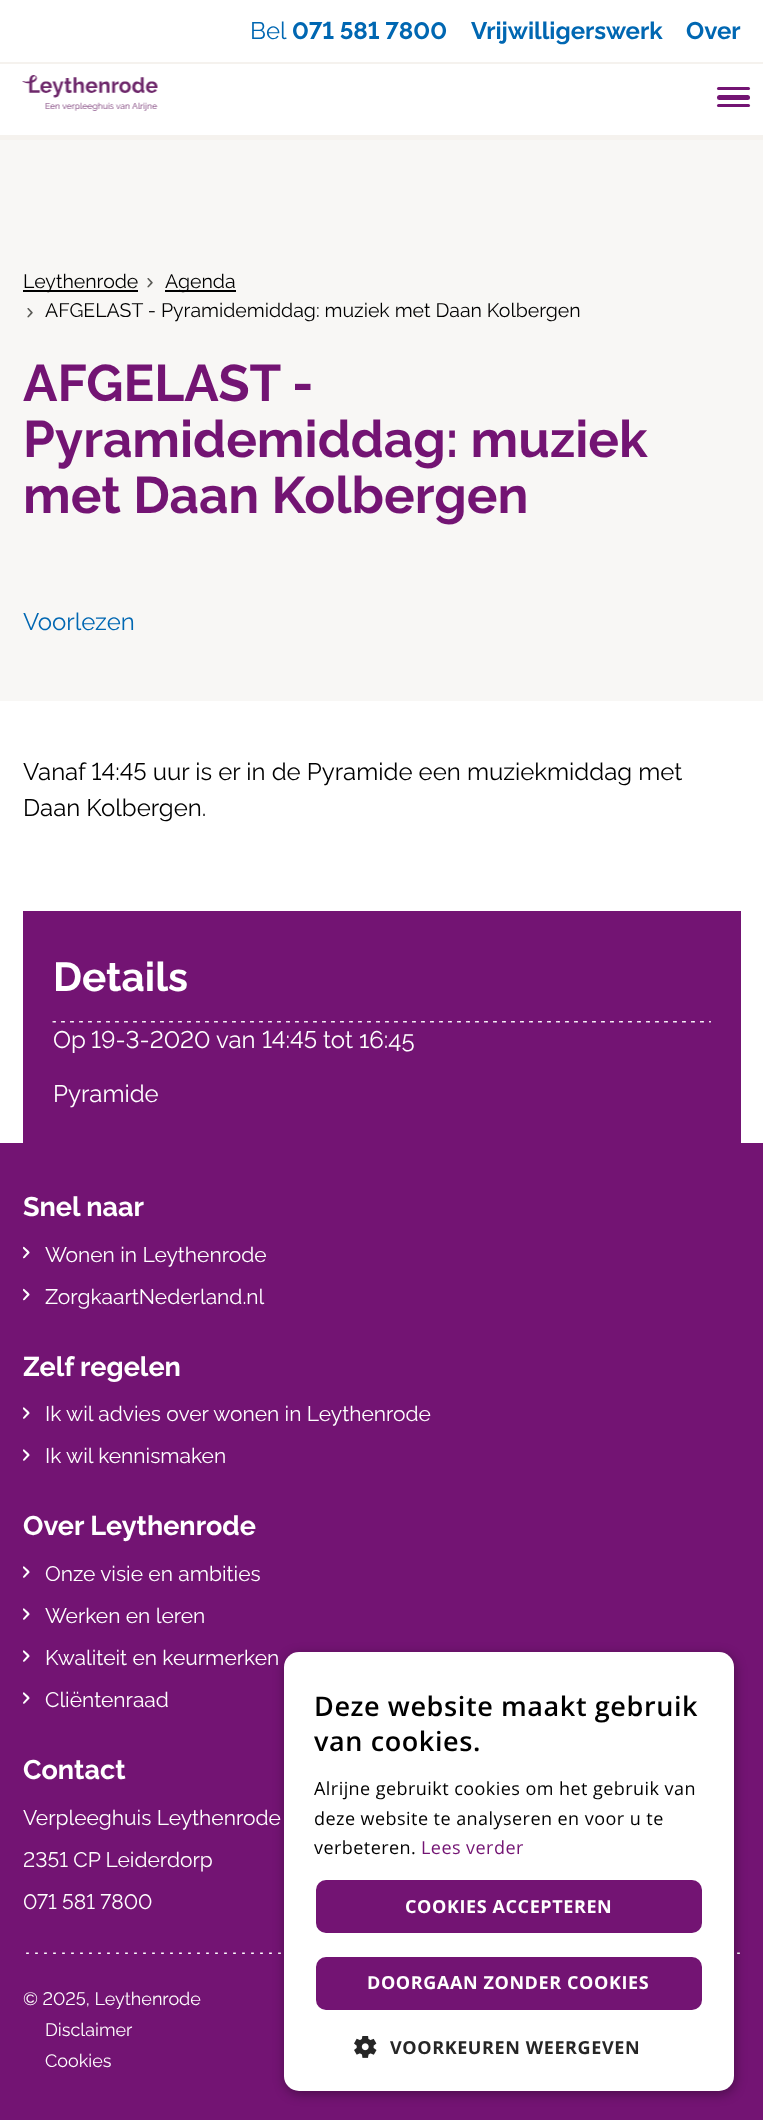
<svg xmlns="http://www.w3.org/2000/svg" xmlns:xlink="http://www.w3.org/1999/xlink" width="763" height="2120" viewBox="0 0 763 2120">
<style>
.cls-1{font:24px Raleway;fill:#0067b2}
.cls-2{font:bold 24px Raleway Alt;fill:#0067b2}
.cls-3{font:bold 24px Raleway;fill:#0067b2}
.cls-4{font:19.5px Raleway;fill:#000000}
.cls-5{font:bold 51.25px Raleway;fill:#731473}
.cls-6{font:24px Raleway Alt;fill:#000000}
.cls-7{font:24px Raleway;fill:#000000}
.cls-8{font:bold 40.5px Raleway;fill:#ffffff}
.cls-9{font:24px Raleway;fill:#ffffff}
.cls-10{font:24px Raleway Alt;fill:#ffffff}
.cls-11{font:bold 27px Raleway;fill:#ffffff}
.cls-12{font:21px Raleway;fill:#ffffff}
.cls-13{font:21px Raleway Alt;fill:#ffffff}
.cls-14{font:18px Raleway Alt;fill:#ffffff}
.cls-15{font:18px Raleway;fill:#ffffff}
.cls-16{font:600 27px Open Sans;letter-spacing:0.6px;fill:#000000}
.cls-17{font:18px Open Sans;letter-spacing:0.45px;fill:#000000}
.cls-18{font:18px Open Sans;letter-spacing:0.45px;fill:#731473}
.cls-19{font:bold 18px Open Sans;letter-spacing:0.6px;fill:#ffffff}
.cls-20{font:bold 18px Open Sans;letter-spacing:0.6px;fill:#262626}
</style>
<rect width="100%" height="100%" fill="#f5f2ee"/>
<rect fill="#ffffff" x="0" y="0" width="763" height="135"/>
<rect fill="#f5f2ee" x="0" y="62" width="763" height="2"/>
<image xlink:href="image0.png" x="22" y="75" width="136" height="36"/>
<rect fill="#731473" x="717" y="87" width="33" height="3" rx="1.5"/>
<rect fill="#731473" x="717" y="95" width="33" height="5" rx="2.5"/>
<rect fill="#731473" x="717" y="104" width="33" height="3" rx="1.5"/>
<rect fill="#f8f7f5" x="0" y="140" width="763" height="561"/>
<rect fill="#000000" x="23" y="290" width="115" height="2"/>
<image xlink:href="image1.png" x="147" y="278" width="6" height="10"/>
<rect fill="#000000" x="165" y="290" width="71" height="2"/>
<image xlink:href="image1.png" x="27" y="308" width="6" height="10"/>
<rect fill="#ffffff" x="0" y="701" width="763" height="442"/>
<rect fill="#731473" x="23" y="911" width="718" height="232"/>
<image xlink:href="image2.png" x="52" y="1021" width="659" height="2"/>
<rect fill="#731473" x="0" y="1143" width="763" height="977"/>
<path fill="#ffffff" d="M23 1248.5L27 1252.5C26.5 1253.5 23 1256.5 23 1257.5C23.5 1260 26.5 1256 27 1255.5L29.5 1253C30 1252 27.5 1250 27 1249.5C26.5 1249.5 23.5 1245 23 1247.5Z"/>
<path fill="#ffffff" d="M23 1290.5L27 1294.5C26.5 1295.5 23 1298.5 23 1299.5C23.5 1302 26.5 1298 27 1297.5L29.5 1295C30 1294 27.5 1292 27 1291.5C26.5 1291.5 23.5 1287 23 1289.5Z"/>
<path fill="#ffffff" d="M23 1409L27 1413C26.5 1414 23 1417 23 1418C23.5 1420.5 26.5 1416.5 27 1416L29.5 1413.5C30 1412.5 27.5 1410.5 27 1410C26.5 1410 23.5 1405.5 23 1408Z"/>
<path fill="#ffffff" d="M23 1451L27 1455C26.5 1456 23 1459 23 1460C23.5 1462.5 26.5 1458.5 27 1458L29.5 1455.5C30 1454.5 27.5 1452.5 27 1452C26.5 1452 23.5 1447.5 23 1450Z"/>
<path fill="#ffffff" d="M23 1568L27 1572C26.5 1573 23 1576 23 1577C23.5 1579.5 26.5 1575.5 27 1575L29.5 1572.5C30 1571.5 27.5 1569.5 27 1569C26.5 1569 23.5 1564.5 23 1567Z"/>
<path fill="#ffffff" d="M23 1610L27 1614C26.5 1615 23 1618 23 1619C23.5 1621.5 26.5 1617.5 27 1617L29.5 1614.5C30 1613.5 27.5 1611.5 27 1611C26.5 1611 23.5 1606.5 23 1609Z"/>
<path fill="#ffffff" d="M23 1652L27 1656C26.5 1657 23 1660 23 1661C23.5 1663.5 26.5 1659.5 27 1659L29.5 1656.5C30 1655.5 27.5 1653.5 27 1653C26.5 1653 23.5 1648.5 23 1651Z"/>
<path fill="#ffffff" d="M23 1694L27 1698C26.5 1699 23 1702 23 1703C23.5 1705.5 26.5 1701.5 27 1701L29.5 1698.5C30 1697.5 27.5 1695.5 27 1695C26.5 1695 23.5 1690.5 23 1693Z"/>
<image xlink:href="image3.png" x="26" y="1952" width="714" height="2"/>
<rect fill="#000000" fill-opacity="0.35" filter="blur(6px)" x="285" y="1655" width="450" height="439" rx="15"/>
<rect fill="#ffffff" x="284" y="1652" width="450" height="439" rx="15"/>
<rect fill="#731473" stroke="#ffffff" stroke-width="2" x="315" y="1879" width="388" height="55" rx="11"/>
<rect fill="#731473" stroke="#ffffff" stroke-width="2" x="315" y="1956" width="388" height="55" rx="11"/>
<image xlink:href="image4.png" x="354" y="2036" width="23" height="22"/>
<text class="cls-1" x="250" y="39">Bel</text>
<text class="cls-2" x="292" y="39">071 581 7800</text>
<text class="cls-3" x="471" y="39">Vrijwilligerswerk</text>
<text class="cls-3" x="686" y="39">Over</text>
<text class="cls-4" x="23" y="288">Leythenrode</text>
<text class="cls-4" x="165" y="288">Agenda</text>
<text class="cls-4" x="45" y="317">AFGELAST - Pyramidemiddag: muziek met Daan Kolbergen</text>
<text class="cls-5"><tspan x="23" y="401">AFGELAST -</tspan><tspan x="23" y="457">Pyramidemiddag: muziek</tspan><tspan x="23" y="513">met Daan Kolbergen</tspan></text>
<text class="cls-1" x="23" y="630">Voorlezen</text>
<text class="cls-6" x="23" y="780">Vanaf 14:45 uur is er in de Pyramide een muziekmiddag met</text>
<text class="cls-7" x="23" y="816">Daan Kolbergen.</text>
<text class="cls-8" x="53" y="991">Details</text>
<text class="cls-9" x="53" y="1048">Op</text>
<text class="cls-10" x="91" y="1048">19-3-2020</text>
<text class="cls-9" x="216" y="1048">van</text>
<text class="cls-10" x="262" y="1048">14:45</text>
<text class="cls-9" x="323" y="1048">tot 16:45</text>
<text class="cls-9" x="53" y="1102">Pyramide</text>
<text class="cls-11" x="23" y="1216">Snel naar</text>
<text class="cls-12" x="45" y="1262">Wonen in Leythenrode</text>
<text class="cls-12" x="45" y="1304">ZorgkaartNederland.nl</text>
<text class="cls-11" x="23" y="1376">Zelf regelen</text>
<text class="cls-12" x="45" y="1421">Ik wil advies over wonen in Leythenrode</text>
<text class="cls-12" x="45" y="1463">Ik wil kennismaken</text>
<text class="cls-11" x="23" y="1535">Over Leythenrode</text>
<text class="cls-12" x="45" y="1581">Onze visie en ambities</text>
<text class="cls-12" x="45" y="1623">Werken en leren</text>
<text class="cls-12" x="45" y="1665">Kwaliteit en keurmerken</text>
<text class="cls-12" x="45" y="1707">Cliëntenraad</text>
<text class="cls-11" x="23" y="1779">Contact</text>
<text class="cls-12" x="23" y="1825">Verpleeghuis Leythenrode</text>
<text class="cls-13" x="23" y="1867">2351 CP Leiderdorp</text>
<text class="cls-13" x="23" y="1909">071 581 7800</text>
<text class="cls-14" x="23" y="2005">© 2025, Leythenrode</text>
<text class="cls-15"><tspan x="45" y="2036">Disclaimer</tspan><tspan x="45" y="2067">Cookies</tspan></text>
<text class="cls-16"><tspan x="314" y="1716">Deze website maakt gebruik</tspan><tspan x="314" y="1751">van cookies.</tspan></text>
<text class="cls-17"><tspan x="314" y="1795">Alrijne gebruikt cookies om het gebruik van</tspan><tspan x="314" y="1825">deze website te analyseren en voor u te</tspan><tspan x="314" y="1854">verbeteren.</tspan></text>
<text class="cls-18" x="421" y="1854">Lees verder</text>
<text class="cls-19" x="405" y="1913">COOKIES ACCEPTEREN</text>
<text class="cls-19" x="367" y="1989">DOORGAAN ZONDER COOKIES</text>
<text class="cls-20" x="390" y="2054">VOORKEUREN WEERGEVEN</text>
</svg>
